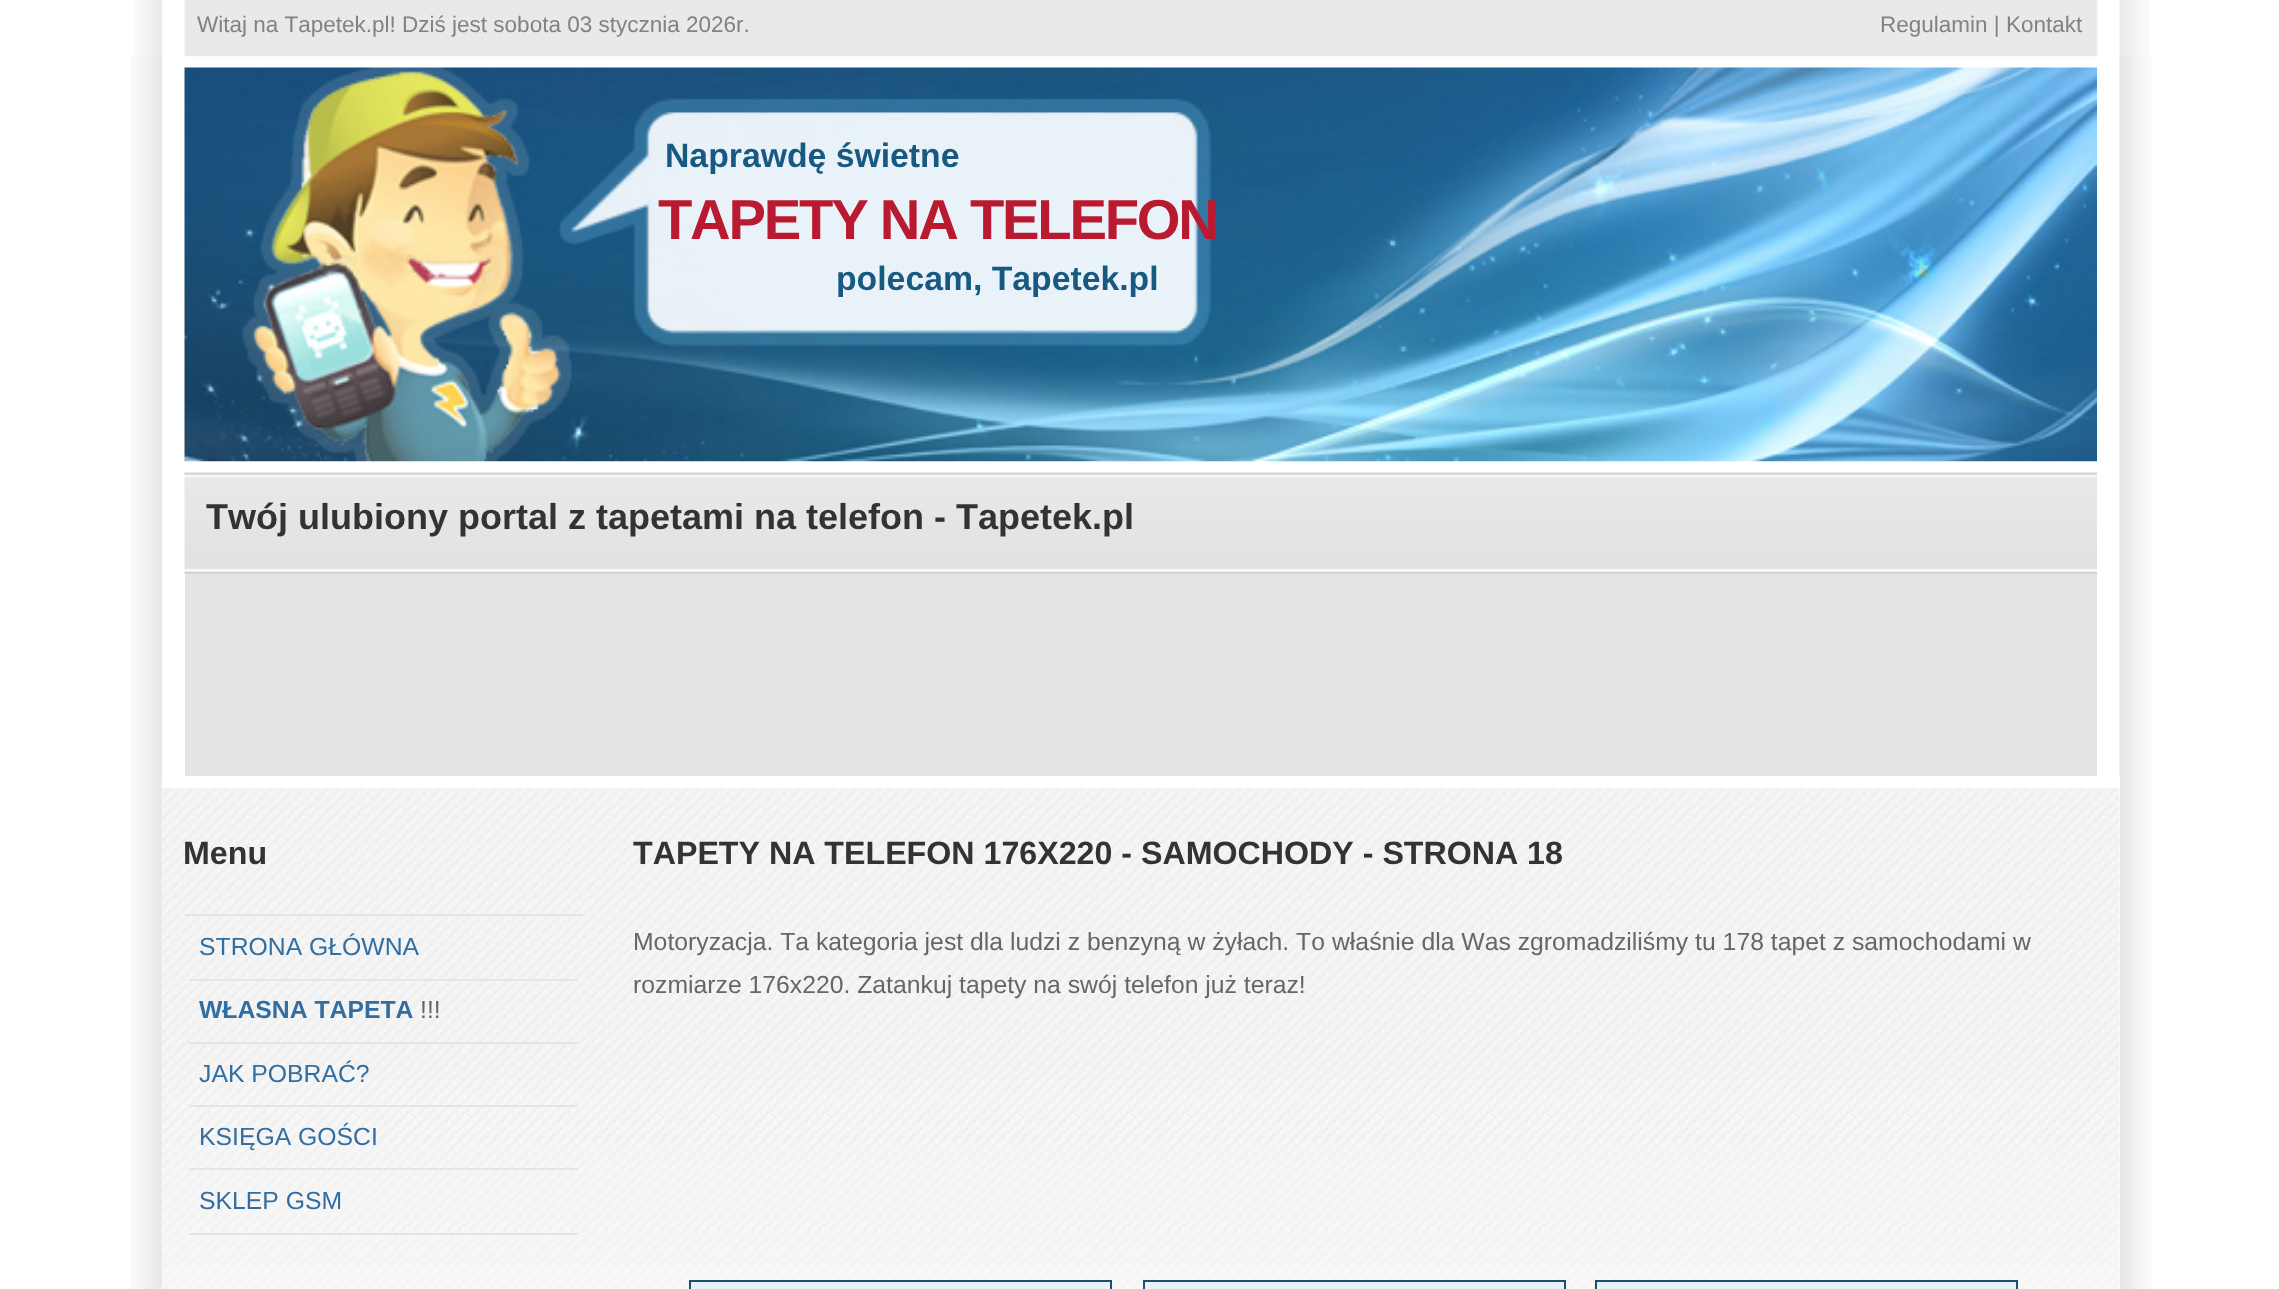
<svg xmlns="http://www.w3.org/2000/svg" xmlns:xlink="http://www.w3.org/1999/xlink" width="2279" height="1289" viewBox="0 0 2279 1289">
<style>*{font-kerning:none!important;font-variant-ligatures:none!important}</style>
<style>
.cls-1{font:22.5px Liberation Sans;fill:#838181}
.cls-2{font:bold 33.75px Liberation Sans;fill:#185981}
.cls-3{font:bold 56.25px Liberation Sans;letter-spacing:-2.25px;fill:#b91a30}
.cls-4{font:bold 36px Liberation Sans;fill:#333333}
.cls-5{font:bold 32.2px Liberation Sans;fill:#333333}
.cls-6{font:24.75px Liberation Sans;fill:#326ea1}
.cls-7{font:bold 24.75px Liberation Sans;fill:#326ea1}
.cls-8{font:24.75px Liberation Sans;fill:#666666}
</style>
<rect width="100%" height="100%" fill="#ffffff"/>
<image xlink:href="image0.png" x="130" y="56" width="2022" height="1233"/>
<image xlink:href="image1.png" x="134" y="0" width="2016" height="57"/>
<image xlink:href="image2.png" x="184" y="67" width="1913" height="395"/>
<rect fill="#e4e4e4" x="185" y="573" width="1912" height="203"/>
<image xlink:href="image3.png" x="184" y="472" width="1913" height="102"/>
<rect fill="#ffffff" x="2119" y="788" width="1" height="501"/>
<image xlink:href="image4.png" x="162" y="788" width="1958" height="501"/>
<rect fill="#ffffff" x="162" y="776" width="1958" height="12"/>
<rect fill="#e5e5e5" x="185" y="914" width="398" height="2"/>
<rect fill="#e5e5e5" x="189" y="979" width="389" height="2"/>
<rect fill="#e5e5e5" x="189" y="1042" width="389" height="2"/>
<rect fill="#e5e5e5" x="189" y="1105" width="389" height="2"/>
<rect fill="#e5e5e5" x="189" y="1168" width="389" height="2"/>
<rect fill="#e5e5e5" x="189" y="1233" width="389" height="2"/>
<rect fill="#e9f2f7" stroke="#194f73" stroke-width="2" x="690" y="1281" width="421" height="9"/>
<rect fill="#e9f2f7" stroke="#194f73" stroke-width="2" x="1144" y="1281" width="421" height="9"/>
<rect fill="#e9f2f7" stroke="#194f73" stroke-width="2" x="1596" y="1281" width="421" height="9"/>
<text class="cls-1" x="197" y="32">Witaj na Tapetek.pl! Dziś jest sobota 03 stycznia 2026r.</text>
<text class="cls-1" x="1880" y="32">Regulamin | Kontakt</text>
<text class="cls-2" x="665" y="167">Naprawdę świetne</text>
<text class="cls-3" x="658" y="239">TAPETY NA TELEFON</text>
<text class="cls-2" x="836" y="290">polecam, Tapetek.pl</text>
<text class="cls-4" x="206" y="529">Twój ulubiony portal z tapetami na telefon - Tapetek.pl</text>
<text class="cls-5" x="183" y="864">Menu</text>
<text class="cls-6" x="199" y="955">STRONA GŁÓWNA</text>
<text class="cls-7" x="199" y="1018">WŁASNA TAPETA</text>
<text class="cls-8" x="420" y="1018">!!!</text>
<text class="cls-6" x="199" y="1082">JAK POBRAĆ?</text>
<text class="cls-6" x="199" y="1145">KSIĘGA GOŚCI</text>
<text class="cls-6" x="199" y="1209">SKLEP GSM</text>
<text class="cls-5" x="633" y="864">TAPETY NA TELEFON 176X220 - SAMOCHODY - STRONA</text>
<text class="cls-5" x="1527" y="864">18</text>
<text class="cls-8" x="633" y="950">Motoryzacja. Ta kategoria jest dla ludzi z benzyną w żyłach. To</text>
<text class="cls-8" x="1332" y="950">właśnie dla Was zgromadziliśmy tu 178 tapet z samochodami w</text>
<text class="cls-8" x="633" y="993">rozmiarze 176x220. Zatankuj tapety na swój telefon już teraz!</text>
</svg>
